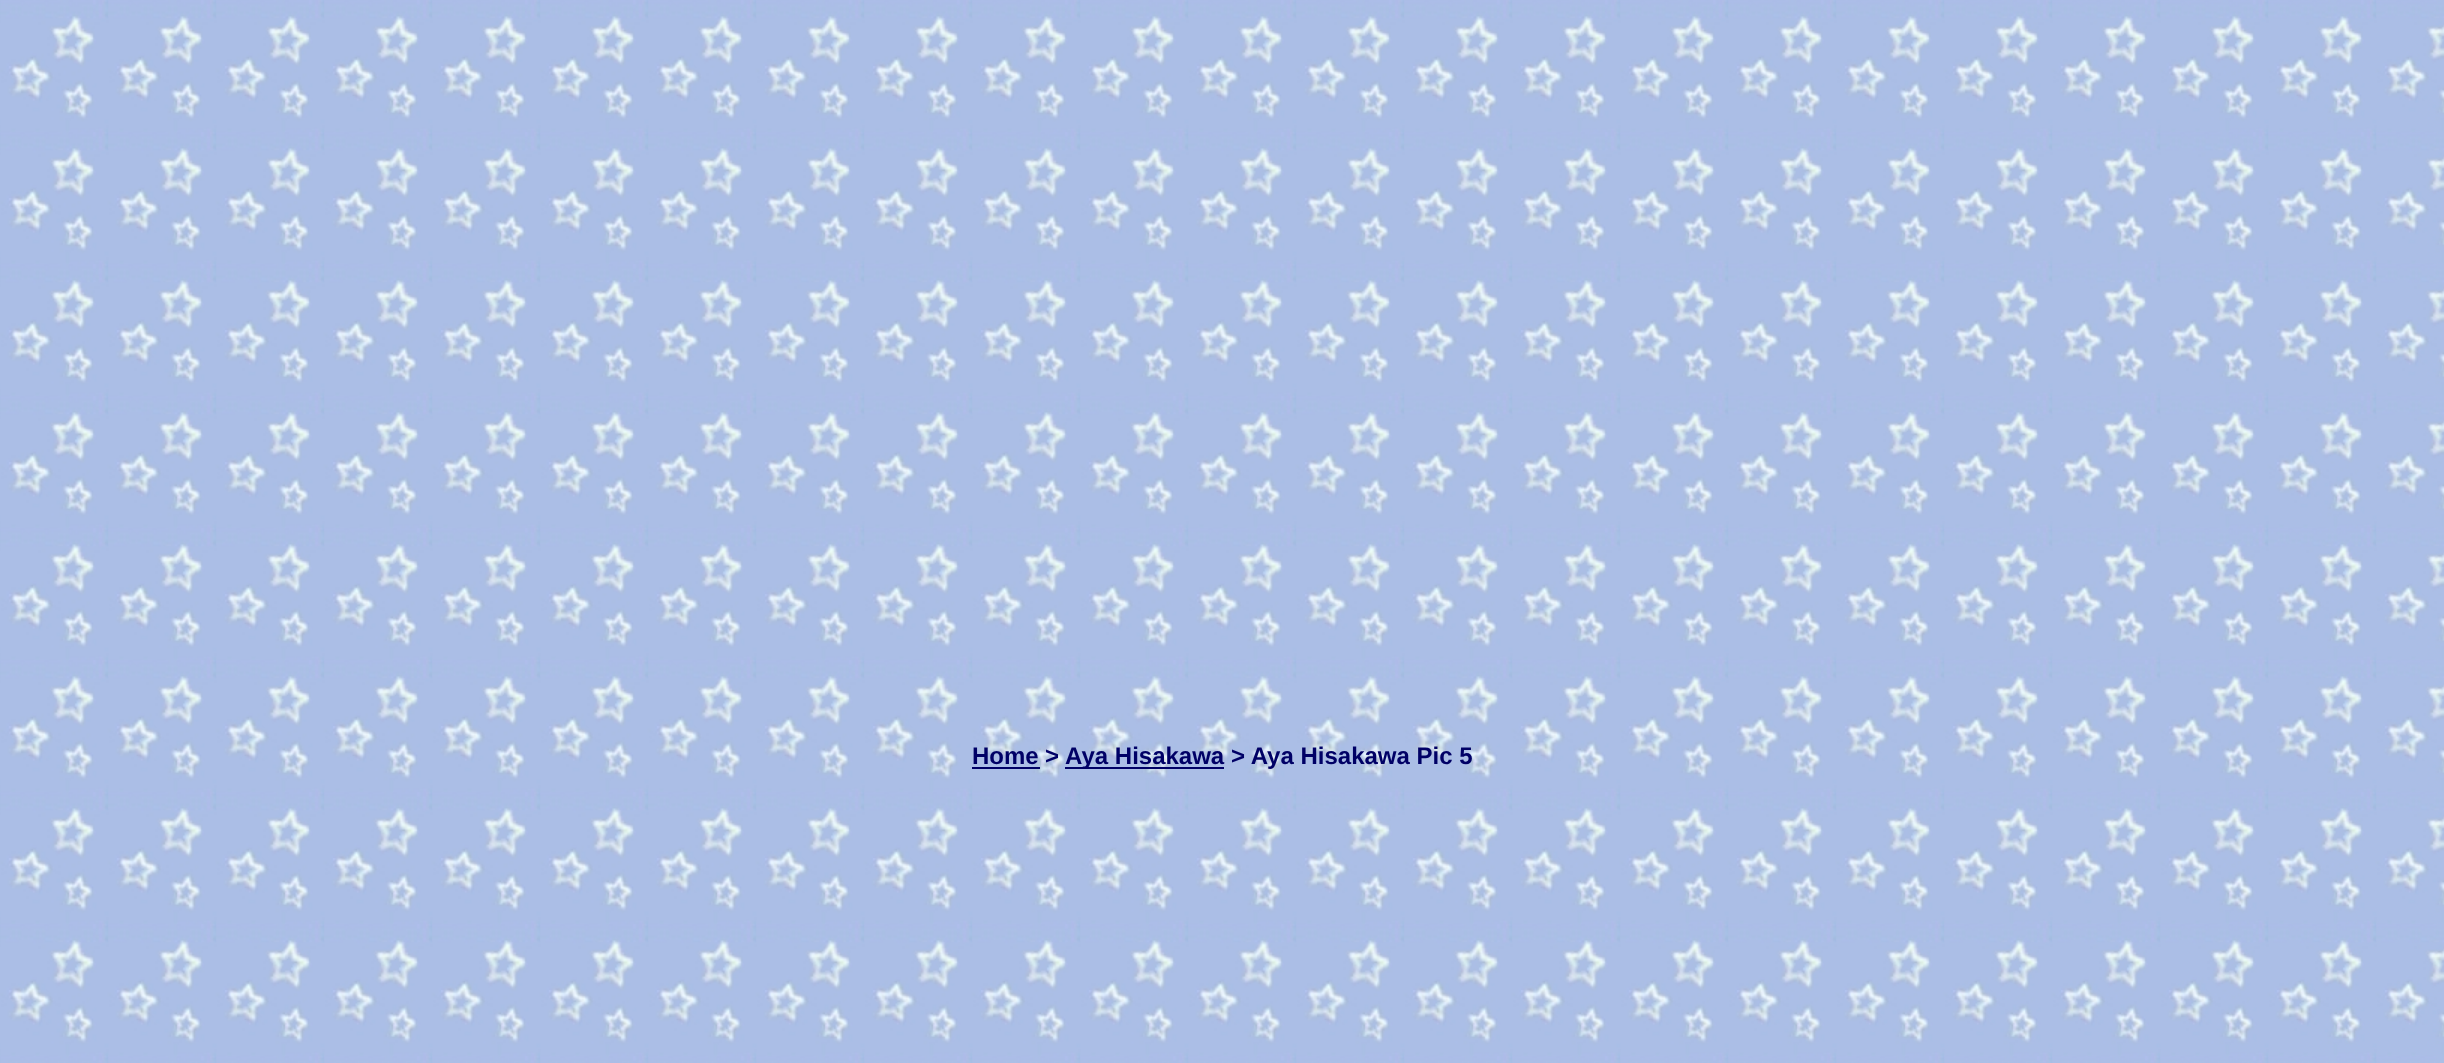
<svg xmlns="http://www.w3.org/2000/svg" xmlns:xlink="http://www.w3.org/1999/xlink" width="2444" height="1063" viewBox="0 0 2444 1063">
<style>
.cls-1{font:bold 24px Liberation Sans;fill:#000066}
</style>
<rect width="100%" height="100%" fill="#ffffff"/>
<image xlink:href="image0.png" x="0" y="0" width="2444" height="1063"/>
<rect fill="#000066" x="972" y="767" width="68" height="2"/>
<rect fill="#000066" x="1065" y="767" width="159" height="2"/>
<text class="cls-1" x="972" y="764">Home</text>
<text class="cls-1" x="1045" y="764">&gt;</text>
<text class="cls-1" x="1065" y="764">Aya Hisakawa &gt; Aya Hisakawa Pic 5</text>
</svg>
